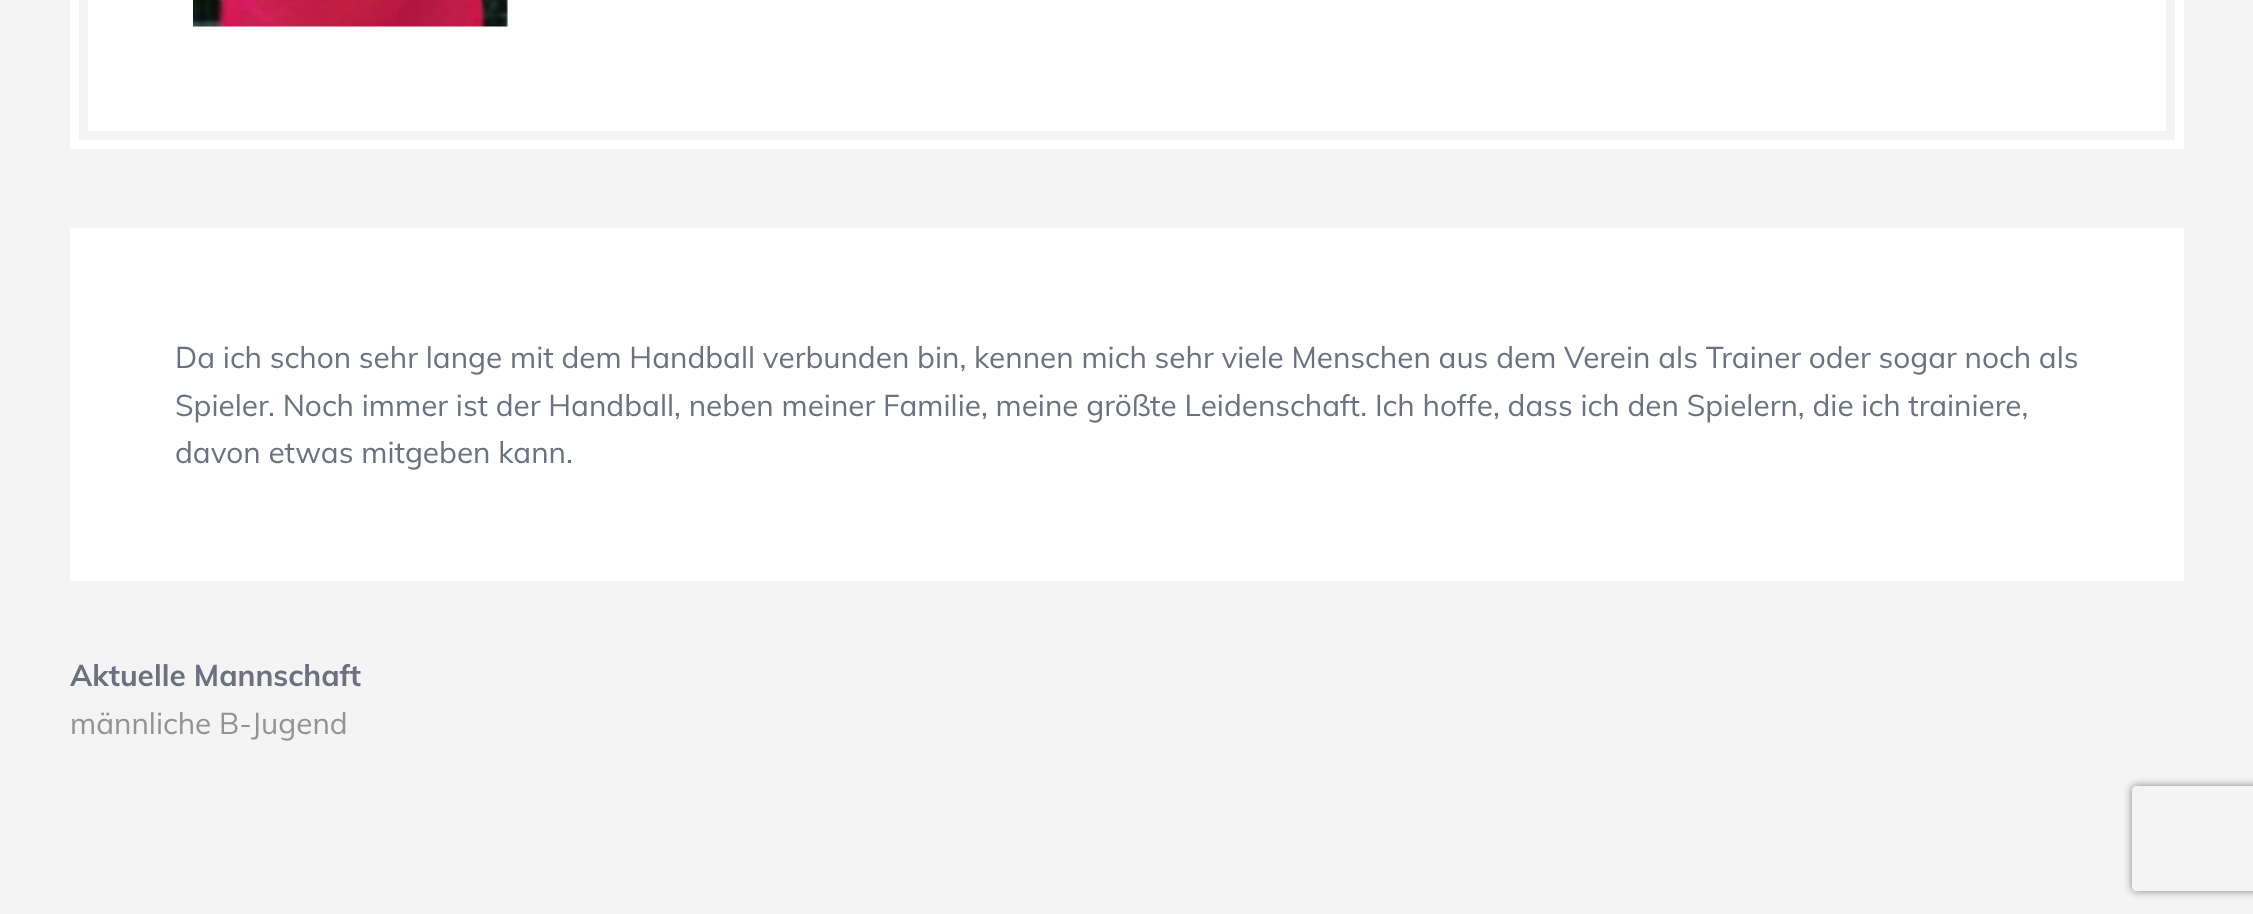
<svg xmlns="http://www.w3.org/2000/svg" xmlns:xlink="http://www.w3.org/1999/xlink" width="2253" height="914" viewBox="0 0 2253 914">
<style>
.cls-1{font:29.75px Muli;fill:#6b717e}
.cls-2{font:bold 29.75px Muli;fill:#6b717e}
.cls-3{font:29.75px Muli;fill:#939393}
</style>
<defs>
<clipPath id="clip1"><path d="M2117 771H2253V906H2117ZM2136 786H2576C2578 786 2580 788 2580 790V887C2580 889 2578 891 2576 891H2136C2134 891 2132 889 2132 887V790C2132 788 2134 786 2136 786Z" clip-rule="evenodd"/></clipPath>
</defs>
<rect width="100%" height="100%" fill="#f4f4f4"/>
<rect fill="#ffffff" x="70" y="0" width="2114" height="149"/>
<rect fill="none" stroke="#f4f4f4" stroke-width="9" x="83.5" y="-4.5" width="2087" height="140"/>
<image xlink:href="image0.png" x="193" y="0" width="315" height="27"/>
<rect fill="#ffffff" x="70" y="228" width="2114" height="353"/>
<g clip-path="url(#clip1)">
<rect fill="#808080" filter="blur(4.5px)" x="2132" y="786" width="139" height="105" rx="4"/>
</g>
<text class="cls-1"><tspan x="175" y="368">Da ich schon sehr lange mit dem Handball verbunden bin, kennen mich sehr viele Menschen aus dem Verein als Trainer oder sogar noch als</tspan><tspan x="175" y="416">Spieler. Noch immer ist der Handball, neben meiner Familie, meine größte Leidenschaft. Ich hoffe, dass ich den Spielern, die ich trainiere,</tspan><tspan x="175" y="463">davon etwas mitgeben kann.</tspan></text>
<text class="cls-2" x="70" y="686">Aktuelle Mannschaft</text>
<text class="cls-3" x="70" y="734">männliche B-Jugend</text>
</svg>
